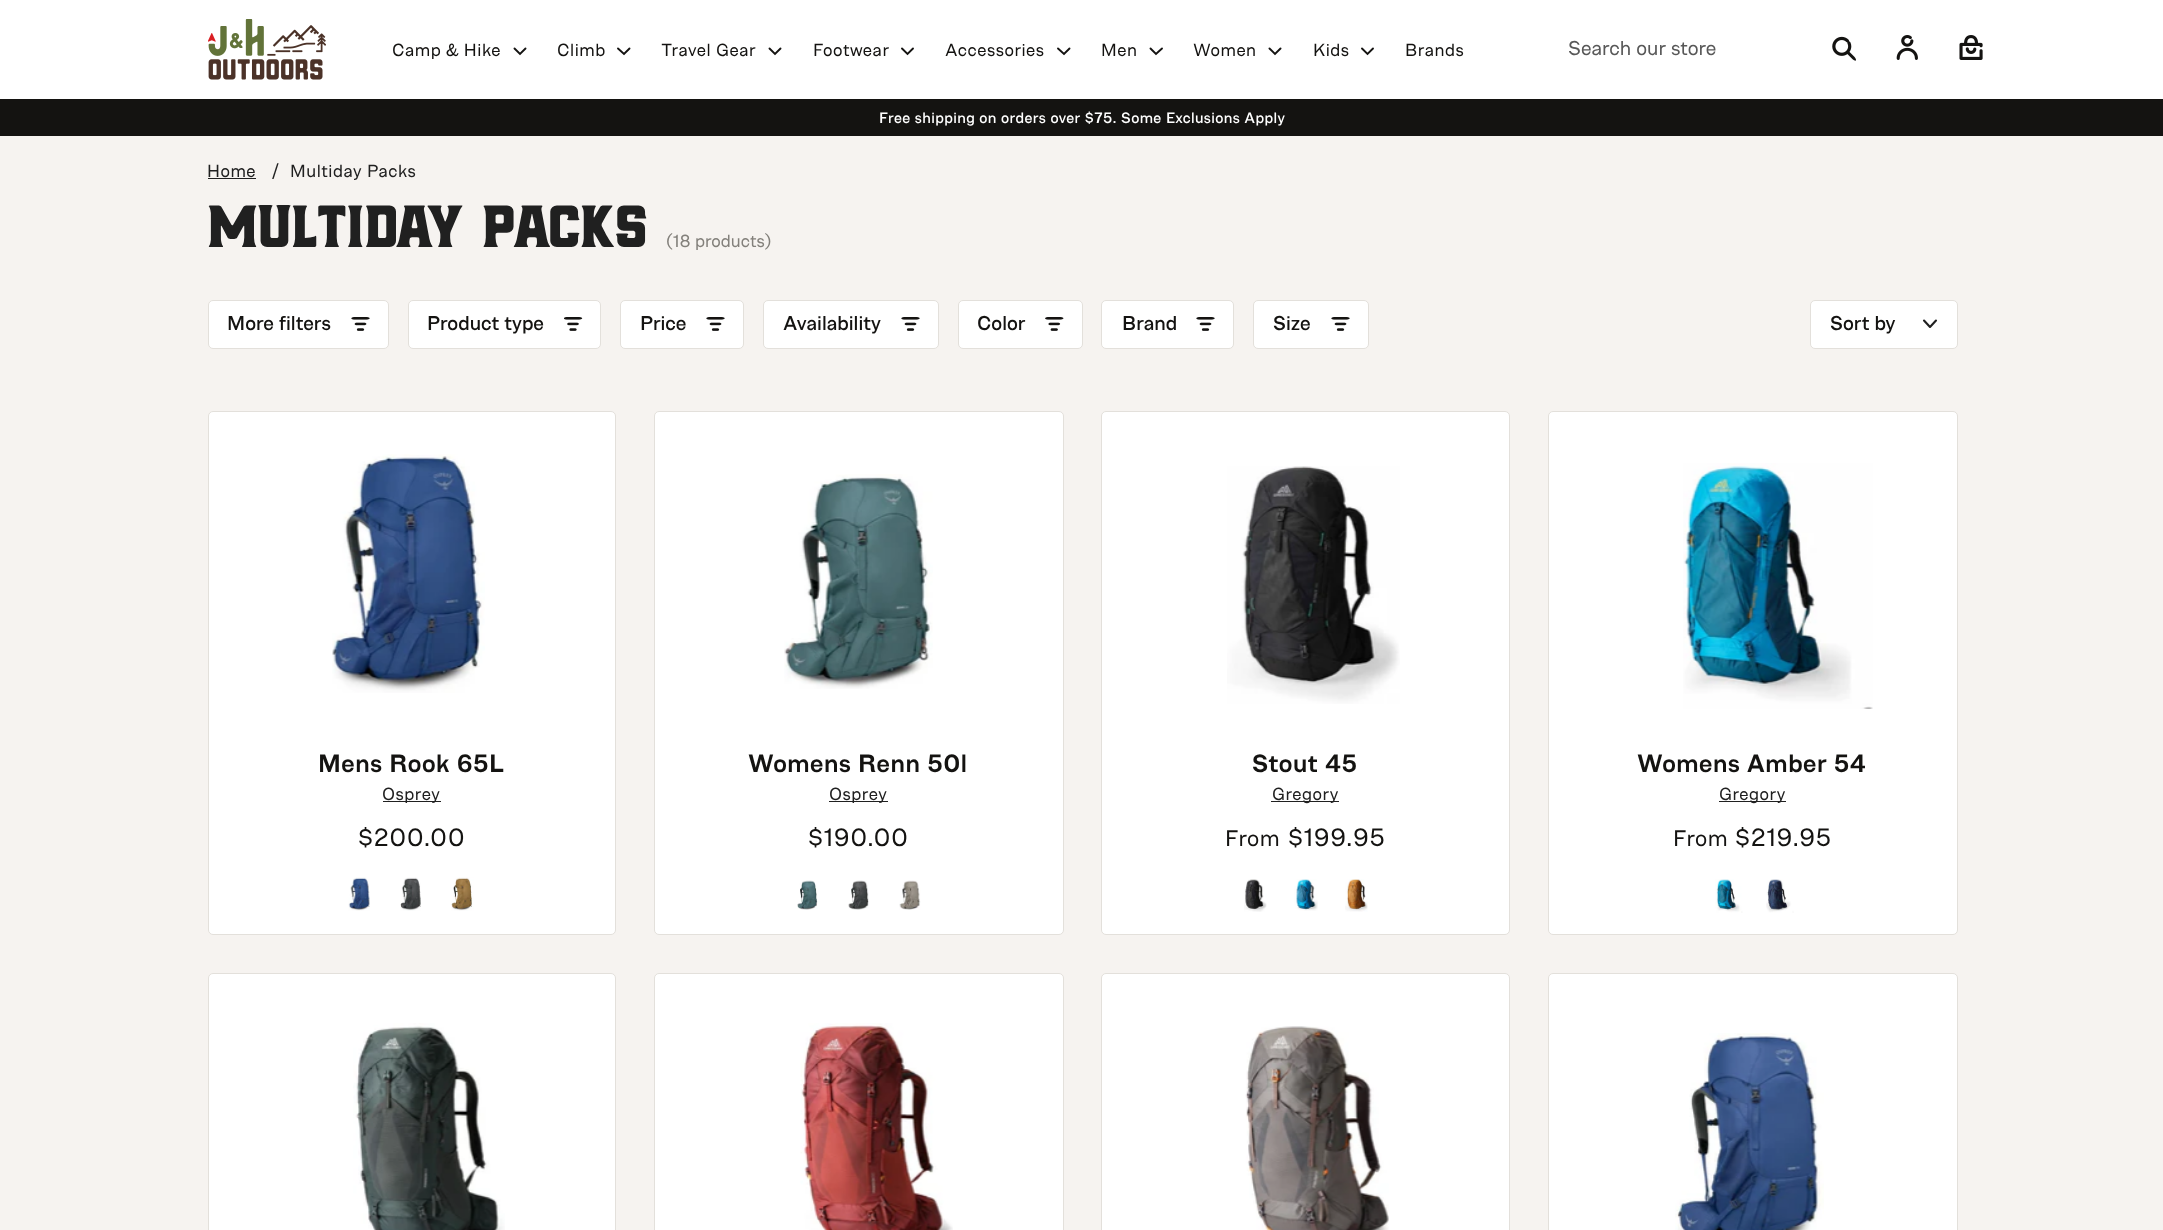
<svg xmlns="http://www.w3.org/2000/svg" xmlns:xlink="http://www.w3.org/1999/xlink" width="2163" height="1230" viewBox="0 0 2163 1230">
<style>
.cls-1{font:17.5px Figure;letter-spacing:0.5px;fill:#141311}
.cls-2{font:20px Figure;fill:#585858}
.cls-3{font:500 15px Figure;letter-spacing:0.38px;fill:#ffffff}
.cls-4{font:17.5px Figure;letter-spacing:0.5px;fill:#202020}
.cls-5{font:60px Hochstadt;letter-spacing:-1.5px;fill:#202020}
.cls-6{font:17.5px Figure;fill:#83807b}
.cls-7{font:500 20px Figure;fill:#141311}
.cls-8{font:600 25px Figure;letter-spacing:0.5px;fill:#141311}
.cls-9{font:25px Figure;letter-spacing:0.5px;fill:#141311}
.cls-10{font:22.5px Figure;letter-spacing:0.5px;fill:#141311}
</style>
<rect width="100%" height="100%" fill="#f6f3f0"/>
<rect fill="#ffffff" x="0" y="0" width="2163" height="99"/>
<image xlink:href="image0.png" x="208" y="19" width="118" height="61"/>
<path fill="none" stroke="#141311" stroke-width="1.9" stroke-linecap="round" d="M514.5 48.5L520 54L525.5 48.5"/>
<path fill="none" stroke="#141311" stroke-width="1.9" stroke-linecap="round" d="M618 48.5L624 54L629.5 48.5"/>
<path fill="none" stroke="#141311" stroke-width="1.9" stroke-linecap="round" d="M769.5 48.5L775 54L780.5 48.5"/>
<path fill="none" stroke="#141311" stroke-width="1.9" stroke-linecap="round" d="M902 48.5L907.5 54L913 48.5"/>
<path fill="none" stroke="#141311" stroke-width="1.9" stroke-linecap="round" d="M1058 48.5L1064 54L1069.5 48.5"/>
<path fill="none" stroke="#141311" stroke-width="1.9" stroke-linecap="round" d="M1150.5 48.5L1156 54L1162 48.5"/>
<path fill="none" stroke="#141311" stroke-width="1.9" stroke-linecap="round" d="M1269.5 48.5L1275 54L1280.5 48.5"/>
<path fill="none" stroke="#141311" stroke-width="1.9" stroke-linecap="round" d="M1362 48.5L1367.5 54L1373 48.5"/>
<image xlink:href="image1.png" x="1832" y="36" width="24" height="25"/>
<image xlink:href="image2.png" x="1896" y="35" width="22" height="25"/>
<image xlink:href="image3.png" x="1959" y="35" width="24" height="25"/>
<rect fill="#141311" x="0" y="99" width="2163" height="37"/>
<rect fill="#202020" x="208" y="178" width="48" height="1"/>
<rect fill="#ffffff" stroke="#e3e0db" x="208.5" y="300.5" width="180" height="48" rx="4.5"/>
<image xlink:href="image4.png" x="351" y="317" width="19" height="14"/>
<rect fill="#ffffff" stroke="#e3e0db" x="408.5" y="300.5" width="192" height="48" rx="4.5"/>
<image xlink:href="image5.png" x="564" y="317" width="19" height="14"/>
<rect fill="#ffffff" stroke="#e3e0db" x="620.5" y="300.5" width="123" height="48" rx="4.5"/>
<image xlink:href="image4.png" x="706" y="317" width="19" height="14"/>
<rect fill="#ffffff" stroke="#e3e0db" x="763.5" y="300.5" width="175" height="48" rx="4.5"/>
<image xlink:href="image4.png" x="901" y="317" width="19" height="14"/>
<rect fill="#ffffff" stroke="#e3e0db" x="958.5" y="300.5" width="124" height="48" rx="4.5"/>
<image xlink:href="image6.png" x="1045" y="317" width="19" height="14"/>
<rect fill="#ffffff" stroke="#e3e0db" x="1101.5" y="300.5" width="132" height="48" rx="4.5"/>
<image xlink:href="image4.png" x="1196" y="317" width="19" height="14"/>
<rect fill="#ffffff" stroke="#e3e0db" x="1253.5" y="300.5" width="115" height="48" rx="4.5"/>
<image xlink:href="image4.png" x="1331" y="317" width="19" height="14"/>
<rect fill="#ffffff" stroke="#e3e0db" x="1810.5" y="300.5" width="147" height="48" rx="4.5"/>
<path fill="none" stroke="#202020" stroke-width="2.1" stroke-linecap="round" stroke-linejoin="round" d="M1924 320.5L1930 327L1936 320.5"/>
<rect fill="#ffffff" stroke="#e3e0db" x="208.5" y="411.5" width="407" height="523" rx="4.5"/>
<image xlink:href="image7.png" x="332" y="454" width="153" height="239"/>
<rect fill="#202020" x="383" y="801" width="58" height="1"/>
<image xlink:href="image8.png" x="348" y="877" width="22" height="34"/>
<image xlink:href="image9.png" x="400" y="877" width="21" height="34"/>
<image xlink:href="image10.png" x="451" y="877" width="23" height="34"/>
<rect fill="#ffffff" stroke="#e3e0db" x="654.5" y="411.5" width="409" height="523" rx="4.5"/>
<image xlink:href="image11.png" x="784" y="474" width="149" height="215"/>
<rect fill="#202020" x="829" y="801" width="59" height="1"/>
<image xlink:href="image12.png" x="797" y="880" width="21" height="30"/>
<image xlink:href="image13.png" x="848" y="880" width="21" height="30"/>
<image xlink:href="image14.png" x="899" y="880" width="22" height="30"/>
<rect fill="#ffffff" stroke="#e3e0db" x="1101.5" y="411.5" width="408" height="523" rx="4.5"/>
<image xlink:href="image15.png" x="1227" y="466" width="173" height="238"/>
<rect fill="#202020" x="1271" y="801" width="68" height="1"/>
<image xlink:href="image16.png" x="1244" y="879" width="23" height="33"/>
<image xlink:href="image17.png" x="1294" y="879" width="24" height="32"/>
<image xlink:href="image18.png" x="1345" y="879" width="23" height="33"/>
<rect fill="#ffffff" stroke="#e3e0db" x="1548.5" y="411.5" width="409" height="523" rx="4.5"/>
<image xlink:href="image19.png" x="1683" y="463" width="190" height="246"/>
<rect fill="#202020" x="1719" y="801" width="67" height="1"/>
<image xlink:href="image20.png" x="1715" y="879" width="28" height="34"/>
<image xlink:href="image21.png" x="1766" y="879" width="28" height="34"/>
<rect fill="#ffffff" stroke="#e3e0db" x="208.5" y="973.5" width="407" height="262" rx="4.5"/>
<image xlink:href="image22.png" x="353" y="1023" width="152" height="207"/>
<rect fill="#ffffff" stroke="#e3e0db" x="654.5" y="973.5" width="409" height="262" rx="4.5"/>
<image xlink:href="image23.png" x="800" y="1023" width="153" height="207"/>
<rect fill="#ffffff" stroke="#e3e0db" x="1101.5" y="973.5" width="408" height="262" rx="4.5"/>
<image xlink:href="image24.png" x="1245" y="1026" width="144" height="204"/>
<rect fill="#ffffff" stroke="#e3e0db" x="1548.5" y="973.5" width="409" height="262" rx="4.5"/>
<image xlink:href="image25.png" x="1675" y="1033" width="149" height="197"/>
<text class="cls-1" x="392" y="56">Camp &amp; Hike</text>
<text class="cls-1" x="557" y="56">Climb</text>
<text class="cls-1" x="661" y="56">Travel Gear</text>
<text class="cls-1" x="813" y="56">Footwear</text>
<text class="cls-1" x="945" y="56">Accessories</text>
<text class="cls-1" x="1101" y="56">Men</text>
<text class="cls-1" x="1193" y="56">Women</text>
<text class="cls-1" x="1313" y="56">Kids</text>
<text class="cls-1" x="1405" y="56">Brands</text>
<text class="cls-2" x="1568" y="55">Search our store</text>
<text class="cls-3" x="879" y="123">Free shipping on orders over $75. Some Exclusions Apply</text>
<text class="cls-4" x="207" y="177">Home</text>
<text class="cls-4" x="272" y="177">/</text>
<text class="cls-4" x="290" y="177">Multiday Packs</text>
<text class="cls-5" x="207" y="247">Multiday Packs</text>
<text class="cls-6" x="666" y="247">(18 products)</text>
<text class="cls-7" x="227" y="330">More filters</text>
<text class="cls-7" x="427" y="330">Product type</text>
<text class="cls-7" x="640" y="330">Price</text>
<text class="cls-7" x="783" y="330">Availability</text>
<text class="cls-7" x="977" y="330">Color</text>
<text class="cls-7" x="1122" y="330">Brand</text>
<text class="cls-7" x="1273" y="330">Size</text>
<text class="cls-7" x="1830" y="330">Sort by</text>
<text class="cls-8" x="318" y="772">Mens Rook 65L</text>
<text class="cls-4" x="382" y="800">Osprey</text>
<text class="cls-9" x="358" y="846">$200.00</text>
<text class="cls-8" x="748" y="772">Womens Renn 50l</text>
<text class="cls-4" x="829" y="800">Osprey</text>
<text class="cls-9" x="808" y="846">$190.00</text>
<text class="cls-8" x="1252" y="772">Stout 45</text>
<text class="cls-4" x="1272" y="800">Gregory</text>
<text class="cls-10" x="1225" y="846">From</text>
<text class="cls-9" x="1288" y="846">$199.95</text>
<text class="cls-8" x="1637" y="772">Womens Amber 54</text>
<text class="cls-4" x="1719" y="800">Gregory</text>
<text class="cls-10" x="1673" y="846">From</text>
<text class="cls-9" x="1735" y="846">$219.95</text>
</svg>
